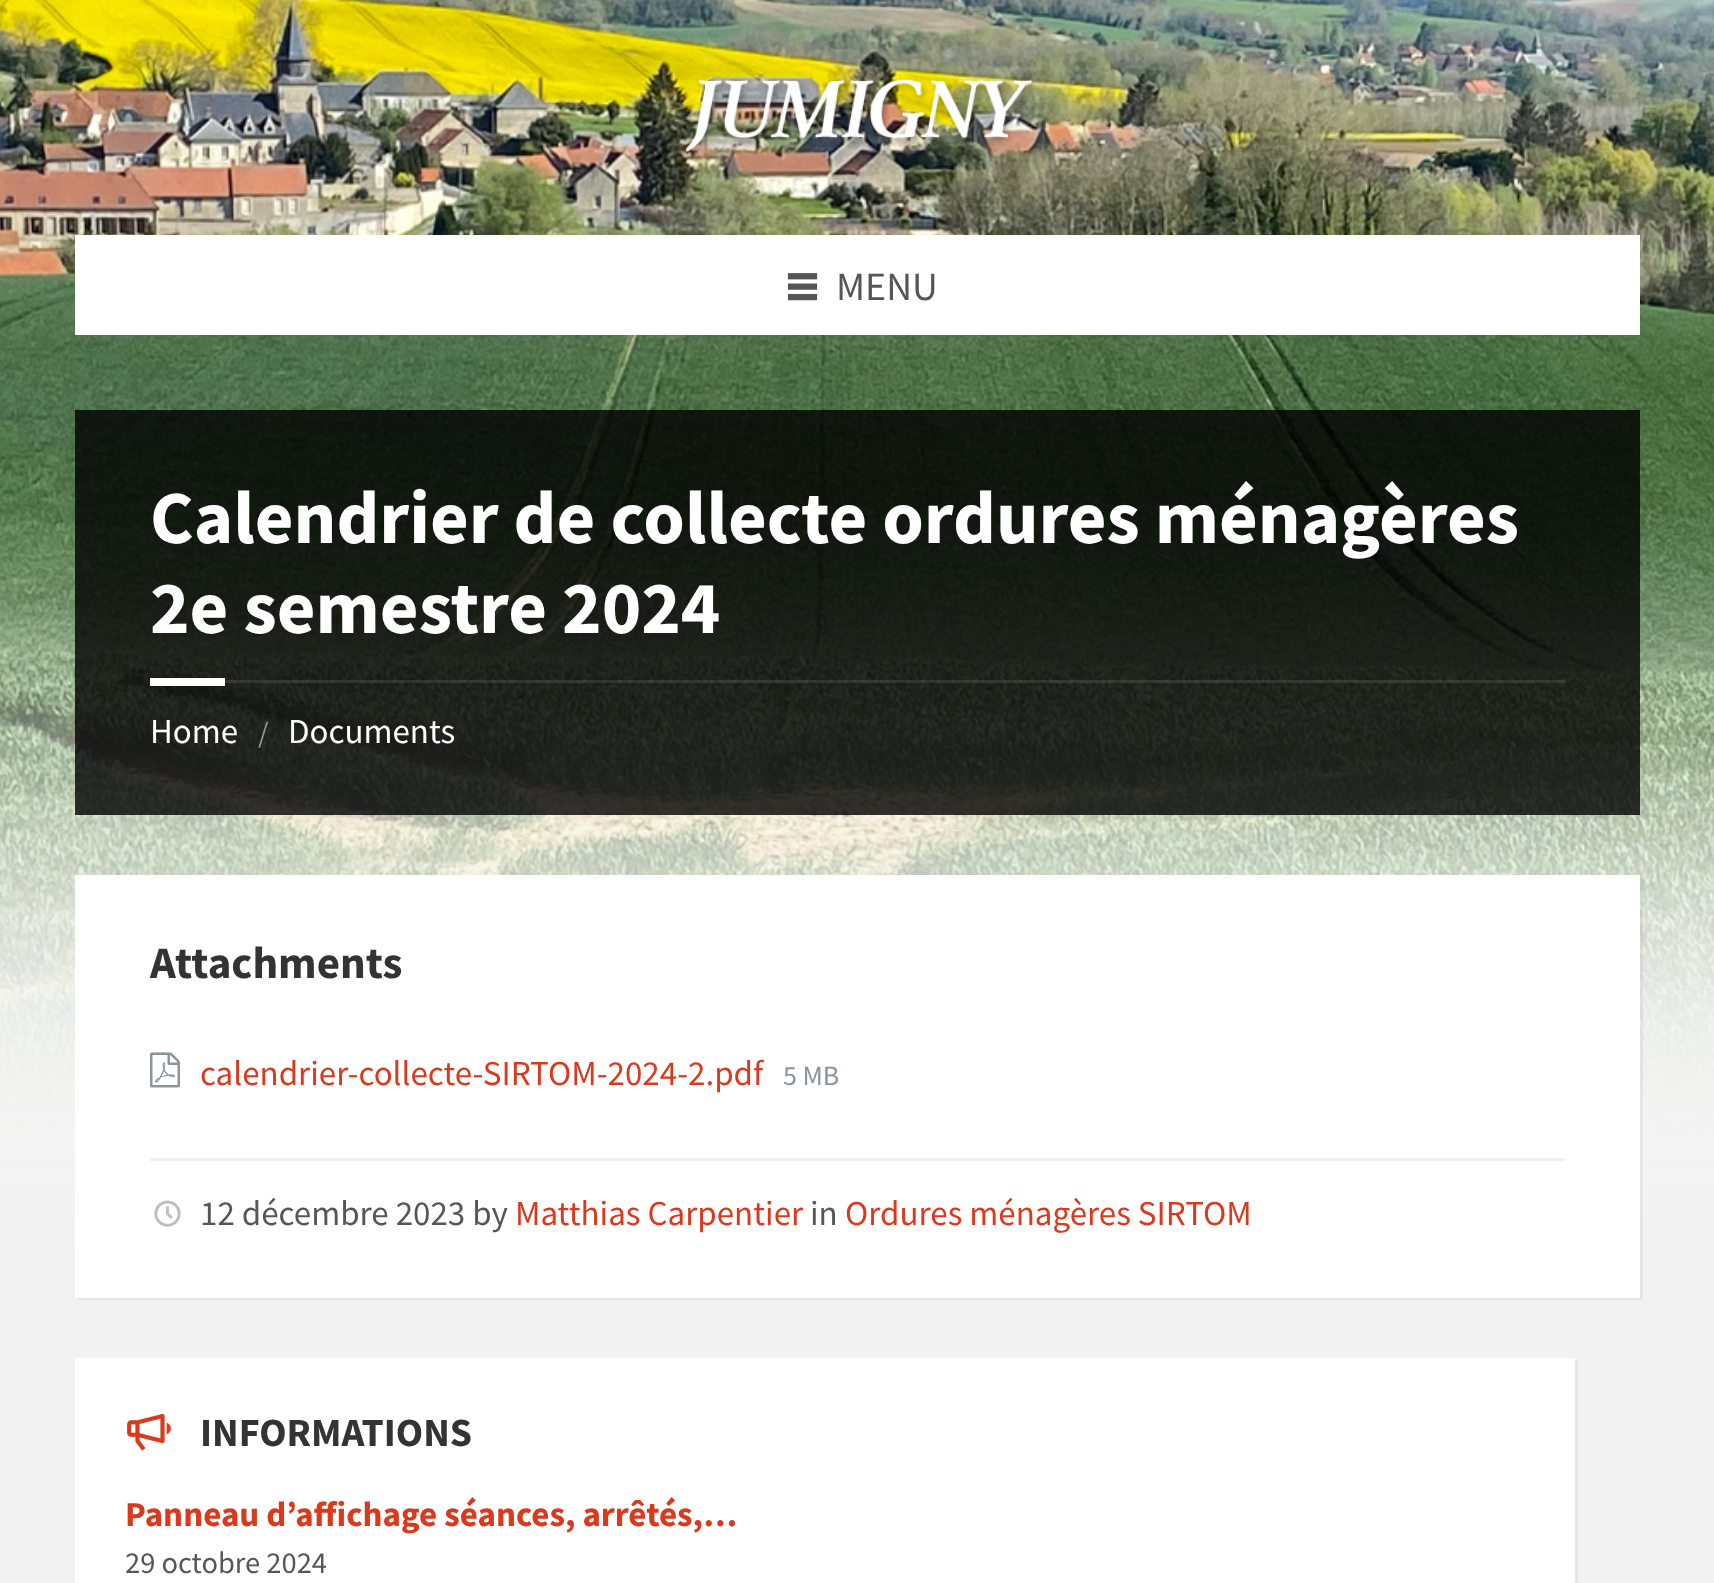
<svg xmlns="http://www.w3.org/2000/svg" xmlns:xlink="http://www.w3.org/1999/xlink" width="1714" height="1583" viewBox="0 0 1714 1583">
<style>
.cls-1{font:40px Source Sans Pro;fill:#565656}
.cls-2{font:bold 75px Source Sans Pro;fill:#ffffff}
.cls-3{font:35px Source Sans Pro;fill:#ffffff}
.cls-4{font:30px Source Sans Pro;fill:#8a949b}
.cls-5{font:bold 45px Source Sans Pro;fill:#333333}
.cls-6{font:35px Source Sans Pro;fill:#d93a1e}
.cls-7{font:28px Source Sans Pro;fill:#8a949b}
.cls-8{font:35px Source Sans Pro;fill:#565656}
.cls-9{font:bold 40px Source Sans Pro;fill:#333333}
.cls-10{font:bold 35px Source Sans Pro;fill:#d93a1e}
.cls-11{font:30.5px Source Sans Pro;fill:#565656}
</style>
<rect width="100%" height="100%" fill="#f2f2f2"/>
<image xlink:href="image0.png" x="0" y="0" width="1714" height="1250"/>
<image xlink:href="image1.png" x="684" y="78" width="349" height="75"/>
<rect fill="#ffffff" x="75" y="235" width="1565" height="100"/>
<image xlink:href="image2.png" x="787" y="273" width="31" height="28"/>
<rect fill="#000000" fill-opacity="0.8" x="75" y="410" width="1565" height="405"/>
<rect fill="#ffffff" fill-opacity="0.1" x="225" y="680" width="1340" height="3"/>
<rect fill="#ffffff" x="150" y="678" width="75" height="8"/>
<path fill="#000000" fill-opacity="0.05" d="M78 1298V1300H1643V878H1640V1298Z"/>
<rect fill="#ffffff" x="75" y="875" width="1565" height="423"/>
<image xlink:href="image3.png" x="150" y="1052" width="30" height="36"/>
<rect fill="#f0f0f0" x="150" y="1158" width="1415" height="3"/>
<image xlink:href="image4.png" x="154" y="1200" width="27" height="27"/>
<path fill="#e6e6e6" d="M78 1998V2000H1578V1360H1575V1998Z"/>
<rect fill="#ffffff" x="75" y="1358" width="1500" height="225"/>
<image xlink:href="image5.png" x="127" y="1414" width="44" height="37"/>
<text class="cls-1" x="836" y="300">MENU</text>
<text class="cls-2"><tspan x="150" y="543">Calendrier de collecte ordures ménagères</tspan><tspan x="150" y="633">2e semestre 2024</tspan></text>
<text class="cls-3" x="150" y="743">Home</text>
<text class="cls-4" x="258" y="743">/</text>
<text class="cls-3" x="288" y="743">Documents</text>
<text class="cls-5" x="150" y="978">Attachments</text>
<text class="cls-6" x="200" y="1085">calendrier-collecte-SIRTOM-2024-2.pdf</text>
<text class="cls-7" x="783" y="1085">5 MB</text>
<text class="cls-8" x="200" y="1225">12 décembre 2023 by</text>
<text class="cls-6" x="515" y="1225">Matthias Carpentier</text>
<text class="cls-8" x="810" y="1225">in</text>
<text class="cls-6" x="845" y="1225">Ordures ménagères SIRTOM</text>
<text class="cls-9" x="200" y="1446">INFORMATIONS</text>
<text class="cls-10" x="125" y="1526">Panneau d’affichage séances, arrêtés,…</text>
<text class="cls-11" x="125" y="1573">29 octobre 2024</text>
</svg>
